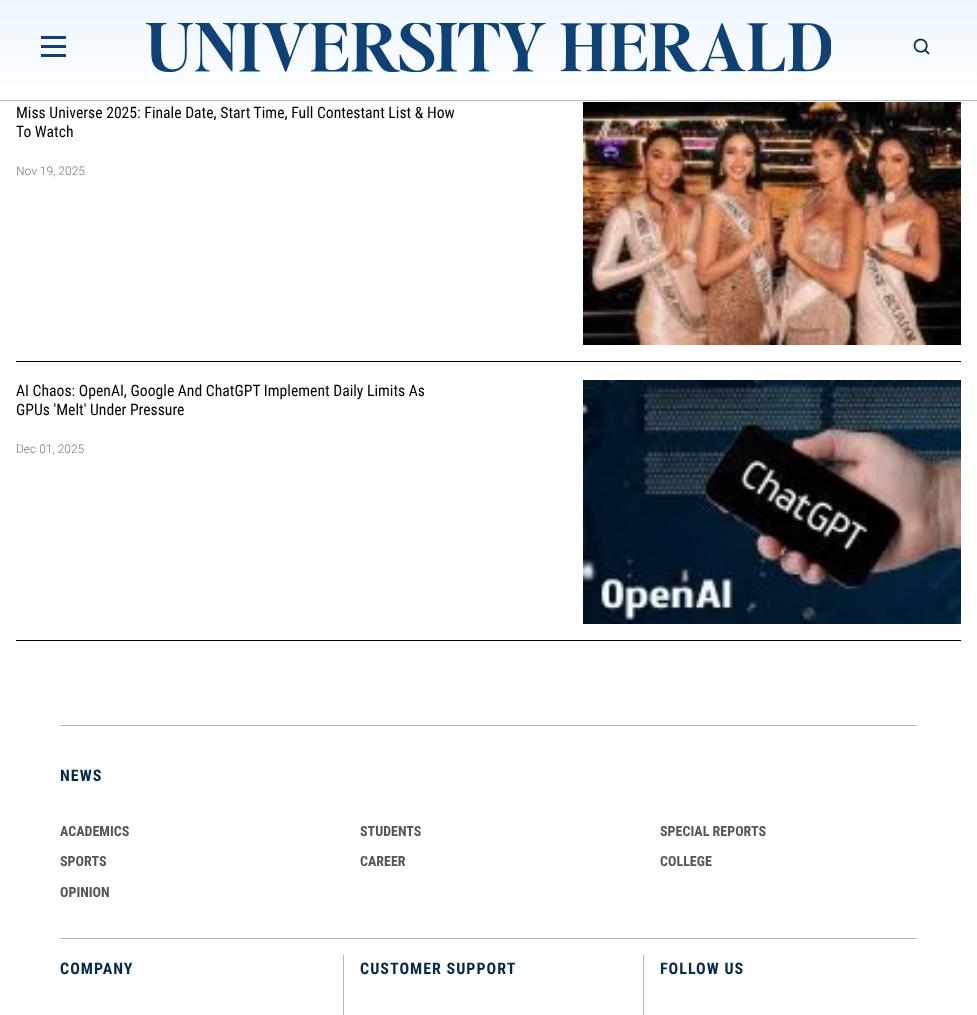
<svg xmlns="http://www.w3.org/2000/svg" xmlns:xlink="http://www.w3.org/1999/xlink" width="977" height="1015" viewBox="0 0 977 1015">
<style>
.cls-1{font:15.7px Roboto Condensed;fill:#000000}
.cls-2{font:300 12px Roboto;fill:#777777}
.cls-3{font:bold 16px Roboto Condensed;letter-spacing:1px;fill:#08294a}
.cls-4{font:bold 14px Roboto Condensed;fill:#555555}
</style>
<defs>
<linearGradient id="g1" gradientUnits="userSpaceOnUse" x1="489" y1="0" x2="489" y2="100"><stop offset="0" stop-color="#edf6ff"/><stop offset="1" stop-color="#ffffff"/></linearGradient>
</defs>
<rect width="100%" height="100%" fill="#ffffff"/>
<rect fill="#afbac5" x="0" y="100" width="977" height="1"/>
<rect fill="url(#g1)" x="0" y="0" width="977" height="86"/>
<image xlink:href="image0.png" x="146" y="23" width="685" height="49"/>
<rect fill="#0f4176" x="41" y="36" width="25" height="3"/>
<rect fill="#0f4176" x="41" y="45" width="25" height="3"/>
<rect fill="#0f4176" x="41" y="54" width="25" height="3"/>
<image xlink:href="image1.png" x="913" y="38" width="17" height="17"/>
<rect fill="#000000" x="16" y="361" width="945" height="1"/>
<image xlink:href="image2.png" x="583" y="102" width="378" height="243"/>
<rect fill="#000000" x="16" y="640" width="945" height="1"/>
<image xlink:href="image3.png" x="583" y="380" width="378" height="244"/>
<rect fill="#bababa" x="60" y="725" width="857" height="1"/>
<rect fill="#bababa" x="60" y="938" width="857" height="1"/>
<rect fill="#bababa" x="343" y="955" width="1" height="60"/>
<rect fill="#bababa" x="643" y="955" width="1" height="60"/>
<text class="cls-1"><tspan x="16" y="118">Miss Universe 2025: Finale Date, Start Time, Full Contestant List &amp; How</tspan><tspan x="16" y="137">To Watch</tspan></text>
<text class="cls-2" x="16" y="175">Nov 19, 2025</text>
<text class="cls-1"><tspan x="16" y="396">AI Chaos: OpenAI, Google And ChatGPT Implement Daily Limits As</tspan><tspan x="16" y="415">GPUs 'Melt' Under Pressure</tspan></text>
<text class="cls-2" x="16" y="453">Dec 01, 2025</text>
<text class="cls-3" x="60" y="781">NEWS</text>
<text class="cls-4" x="60" y="836">ACADEMICS</text>
<text class="cls-4" x="360" y="836">STUDENTS</text>
<text class="cls-4" x="660" y="836">SPECIAL REPORTS</text>
<text class="cls-4" x="60" y="866">SPORTS</text>
<text class="cls-4" x="360" y="866">CAREER</text>
<text class="cls-4" x="660" y="866">COLLEGE</text>
<text class="cls-4" x="60" y="897">OPINION</text>
<text class="cls-3" x="60" y="974">COMPANY</text>
<text class="cls-3" x="360" y="974">CUSTOMER SUPPORT</text>
<text class="cls-3" x="660" y="974">FOLLOW US</text>
</svg>
